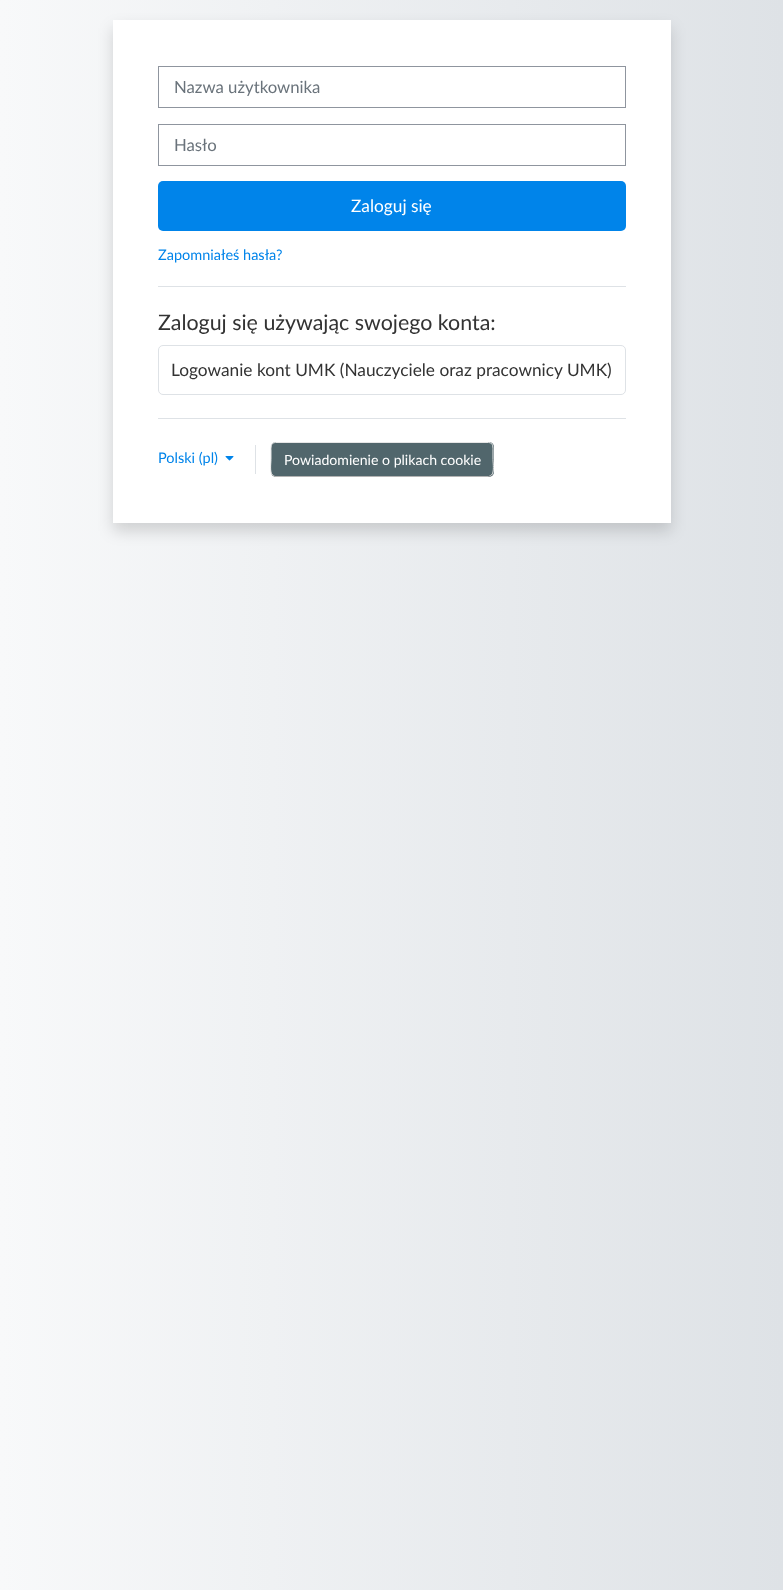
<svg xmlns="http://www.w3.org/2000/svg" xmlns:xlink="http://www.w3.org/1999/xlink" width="783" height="1590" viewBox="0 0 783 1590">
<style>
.cls-1{font:16.75px Lato;fill:#6a737b}
.cls-2{font:17.3px Lato;fill:#ffffff}
.cls-3{font:14.5px Lato;fill:#0084ea}
.cls-4{font:21.4px Lato;fill:#333333}
.cls-5{font:17.3px Lato;fill:#333333}
.cls-6{font:14.1px Lato;fill:#ffffff}
</style>
<defs>
<linearGradient id="g1" gradientUnits="userSpaceOnUse" x1="0" y1="795" x2="783" y2="795"><stop offset="0" stop-color="#f8f9fa"/><stop offset="1" stop-color="#dee2e6"/></linearGradient>
</defs>
<rect width="100%" height="100%" fill="#ffffff"/>
<rect fill="url(#g1)" x="0" y="0" width="783" height="1590"/>
<rect fill="#000000" fill-opacity="0.15" filter="blur(7.5px)" x="113" y="28" width="558" height="503"/>
<rect fill="#ffffff" x="113" y="20" width="558" height="503"/>
<rect fill="none" stroke="#8f959e" x="158.5" y="66.5" width="467" height="41"/>
<rect fill="none" stroke="#8f959e" x="158.5" y="124.5" width="467" height="41"/>
<rect fill="#0084ea" x="158" y="181" width="468" height="50" rx="5"/>
<rect fill="#dee2e6" x="158" y="286" width="468" height="1"/>
<rect fill="none" stroke="#dee2e6" x="158.5" y="345.5" width="467" height="49" rx="4.5"/>
<rect fill="#dee2e6" x="158" y="418" width="468" height="1"/>
<image xlink:href="image0.png" x="225" y="456" width="9" height="5"/>
<rect fill="#dee2e6" x="255" y="445" width="1" height="29"/>
<rect fill="#51666c" x="271" y="442" width="223" height="35" rx="5"/>
<path fill="none" stroke="#b3b3b3" d="M491.5 475L488.5 476.5H275L272.5 475"/>
<path fill="none" stroke="#e6e6e6" d="M272.5 475C269.5 472.5 271 463 271 459.5V451C271 448 270.5 442.5 275.5 442.5H488.5C493.5 442.5 493 448 493 451V459.5C493 463 494.5 472.5 491.5 475"/>
<text class="cls-1" x="174" y="93">Nazwa użytkownika</text>
<text class="cls-1" x="174" y="151">Hasło</text>
<text class="cls-2" x="351" y="212">Zaloguj się</text>
<text class="cls-3" x="158" y="260">Zapomniałeś hasła?</text>
<text class="cls-4" x="158" y="330">Zaloguj się używając swojego konta:</text>
<text class="cls-5" x="171" y="376">Logowanie kont UMK (Nauczyciele oraz pracownicy UMK)</text>
<text class="cls-3" x="158" y="463">Polski (pl)</text>
<text class="cls-6" x="284" y="465">Powiadomienie o plikach cookie</text>
</svg>
